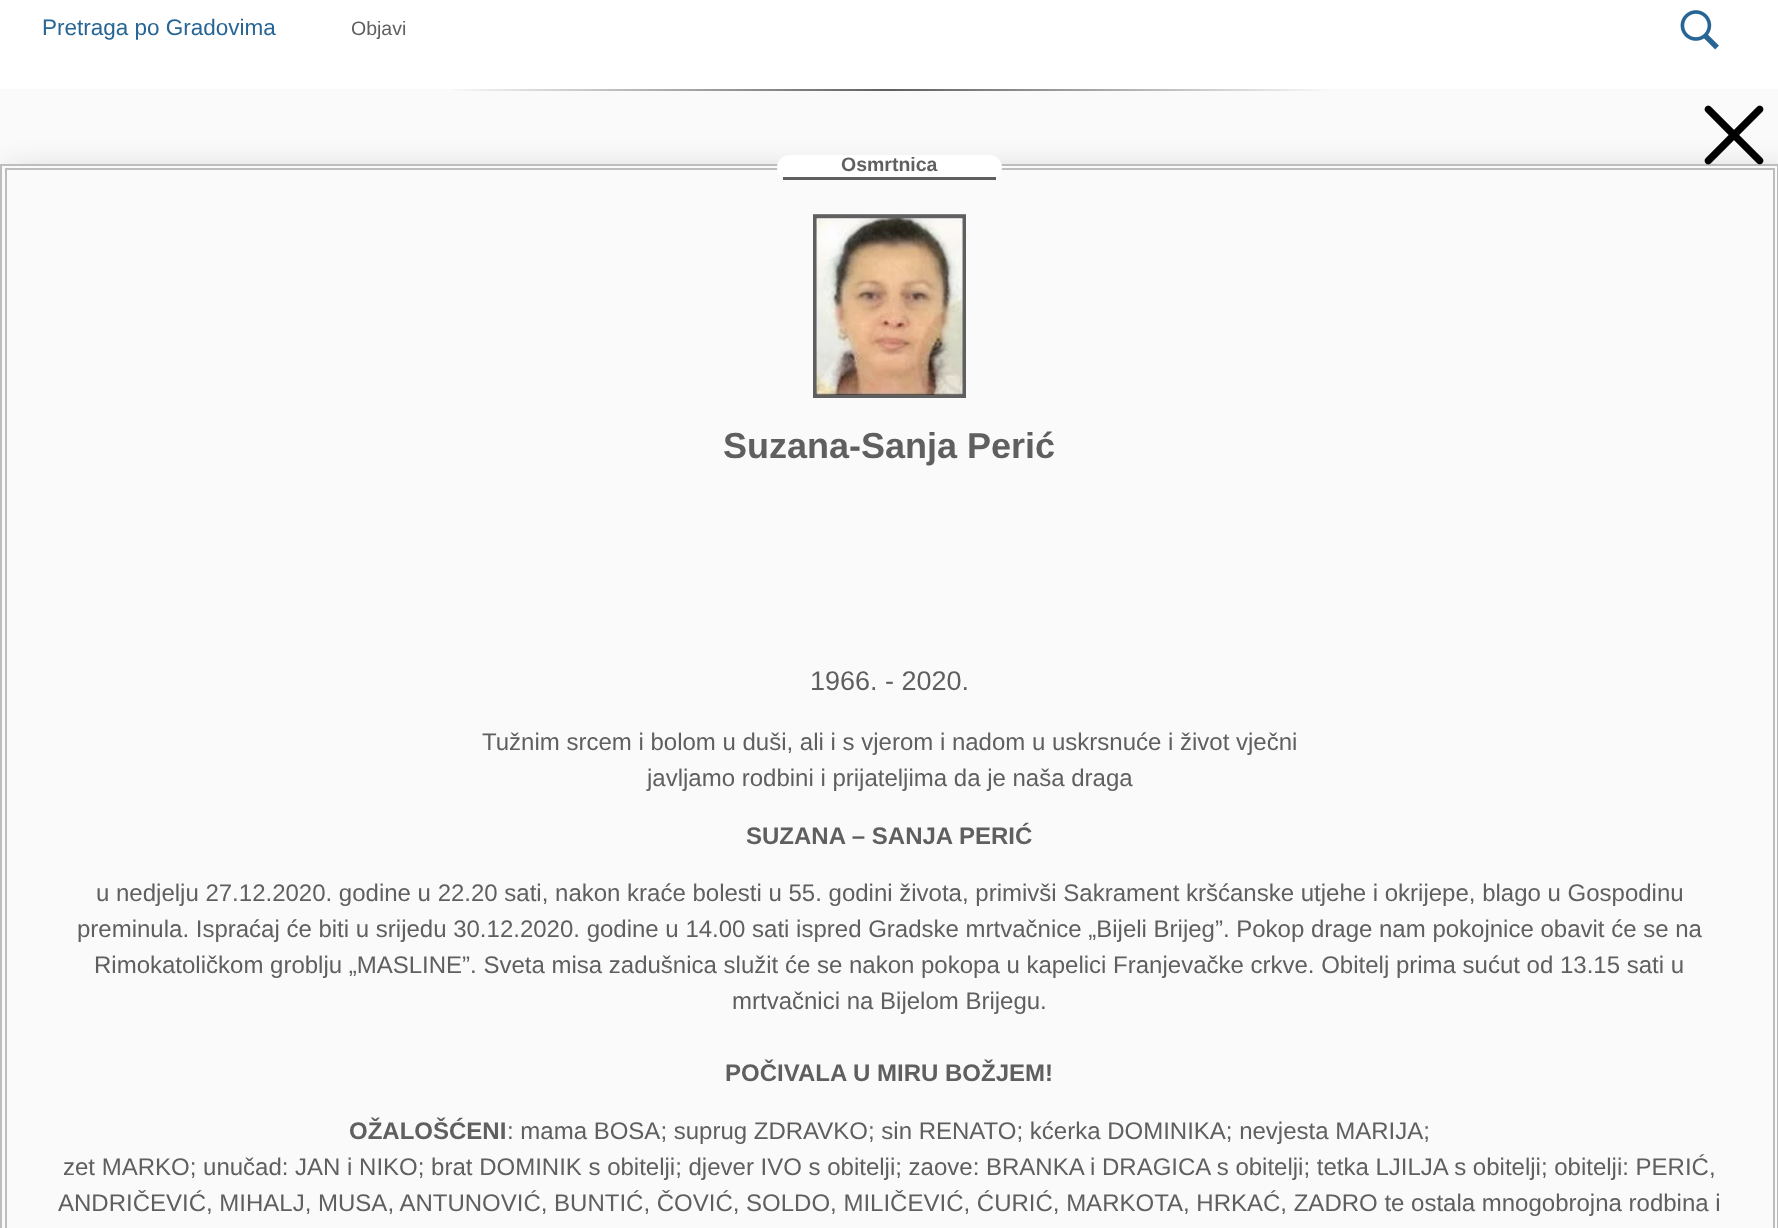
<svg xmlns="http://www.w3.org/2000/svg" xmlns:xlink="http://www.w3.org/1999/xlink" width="1778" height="1228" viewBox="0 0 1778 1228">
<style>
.cls-1{font:22.5px Liberation Sans;fill:#276595}
.cls-2{font:19.5px Liberation Sans;fill:#5f5f5f}
.cls-3{font:bold 19.5px Liberation Sans;fill:#5f5f5f}
.cls-4{font:bold 36px Liberation Sans;fill:#5f5f5f}
.cls-5{font:27px Liberation Sans;fill:#5f5f5f}
.cls-6{font:24px Liberation Sans;fill:#5f5f5f}
.cls-7{font:bold 24px Liberation Sans;fill:#5f5f5f}
</style>
<defs>
<linearGradient id="g1" gradientUnits="userSpaceOnUse" x1="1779" y1="89" x2="0" y2="89"><stop offset="0.25" stop-color="#fafafa"/><stop offset="0.5" stop-color="#5f5f5f"/><stop offset="0.75" stop-color="#fafafa"/></linearGradient>
<clipPath id="clip1"><rect x="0" y="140" width="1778" height="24"/></clipPath>
</defs>
<rect width="100%" height="100%" fill="#fafafa"/>
<rect fill="#ffffff" x="0" y="0" width="1778" height="89"/>
<image xlink:href="image0.png" x="1680" y="10" width="39" height="40"/>
<rect fill="url(#g1)" x="452" y="89" width="875" height="2"/>
<g clip-path="url(#clip1)">
<rect fill="#cfcfcf" filter="blur(15px)" x="8" y="171" width="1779" height="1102"/>
</g>
<rect fill="none" stroke="#bdbdbd" stroke-width="2" x="1" y="165" width="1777" height="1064"/>
<rect fill="none" stroke="#bdbdbd" stroke-width="2" x="6" y="169" width="1768" height="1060"/>
<rect fill="#ffffff" x="777" y="155" width="225" height="25" rx="12.5"/>
<rect fill="#5f5f5f" x="783" y="177" width="213" height="3"/>
<image xlink:href="image1.png" x="1704" y="105" width="60" height="60"/>
<image xlink:href="image2.png" x="813" y="214" width="153" height="181"/>
<rect fill="none" stroke="#5f5f5f" stroke-width="3" x="814.5" y="216.5" width="150" height="180"/>
<text class="cls-1" x="42" y="35">Pretraga po Gradovima</text>
<text class="cls-2" x="351" y="35">Objavi</text>
<text class="cls-3" x="841" y="171">Osmrtnica</text>
<text class="cls-4" x="723" y="458">Suzana-Sanja Perić</text>
<text class="cls-5" x="810" y="690">1966. - 2020.</text>
<text class="cls-6" x="482" y="750">Tužnim srcem i bolom u duši, ali i s vjerom i nadom u uskrsnuće i život vječni</text>
<text class="cls-6" x="647" y="786">javljamo rodbini i prijateljima da je naša draga</text>
<text class="cls-7" x="746" y="844">SUZANA – SANJA PERIĆ</text>
<text class="cls-6" x="96" y="901">u nedjelju 27.12.2020. godine u 22.20 sati, nakon kraće bolesti u 55. godini života, primivši Sakrament kršćanske utjehe i okrijepe, blago u Gospodinu</text>
<text class="cls-6" x="77" y="937">preminula. Ispraćaj će biti u srijedu 30.12.2020. godine u 14.00 sati ispred Gradske mrtvačnice „Bijeli Brijeg”. Pokop drage nam pokojnice obavit će se na</text>
<text class="cls-6" x="94" y="973">Rimokatoličkom groblju „MASLINE”. Sveta misa zadušnica služit će se nakon pokopa u kapelici Franjevačke crkve. Obitelj prima sućut od 13.15 sati u</text>
<text class="cls-6" x="732" y="1009">mrtvačnici na Bijelom Brijegu.</text>
<text class="cls-7" x="725" y="1081">POČIVALA U MIRU BOŽJEM!</text>
<text class="cls-7" x="349" y="1139">OŽALOŠĆENI</text>
<text class="cls-6" x="507" y="1139">: mama BOSA; suprug ZDRAVKO; sin RENATO; kćerka DOMINIKA; nevjesta MARIJA;</text>
<text class="cls-6" x="63" y="1175">zet MARKO; unučad: JAN i NIKO; brat DOMINIK s obitelji; djever IVO s obitelji; zaove: BRANKA i DRAGICA s obitelji; tetka LJILJA s obitelji; obitelji: PERIĆ,</text>
<text class="cls-6" x="58" y="1211">ANDRIČEVIĆ, MIHALJ, MUSA, ANTUNOVIĆ, BUNTIĆ, ČOVIĆ, SOLDO, MILIČEVIĆ, ĆURIĆ, MARKOTA, HRKAĆ, ZADRO te ostala mnogobrojna rodbina i</text>
</svg>
